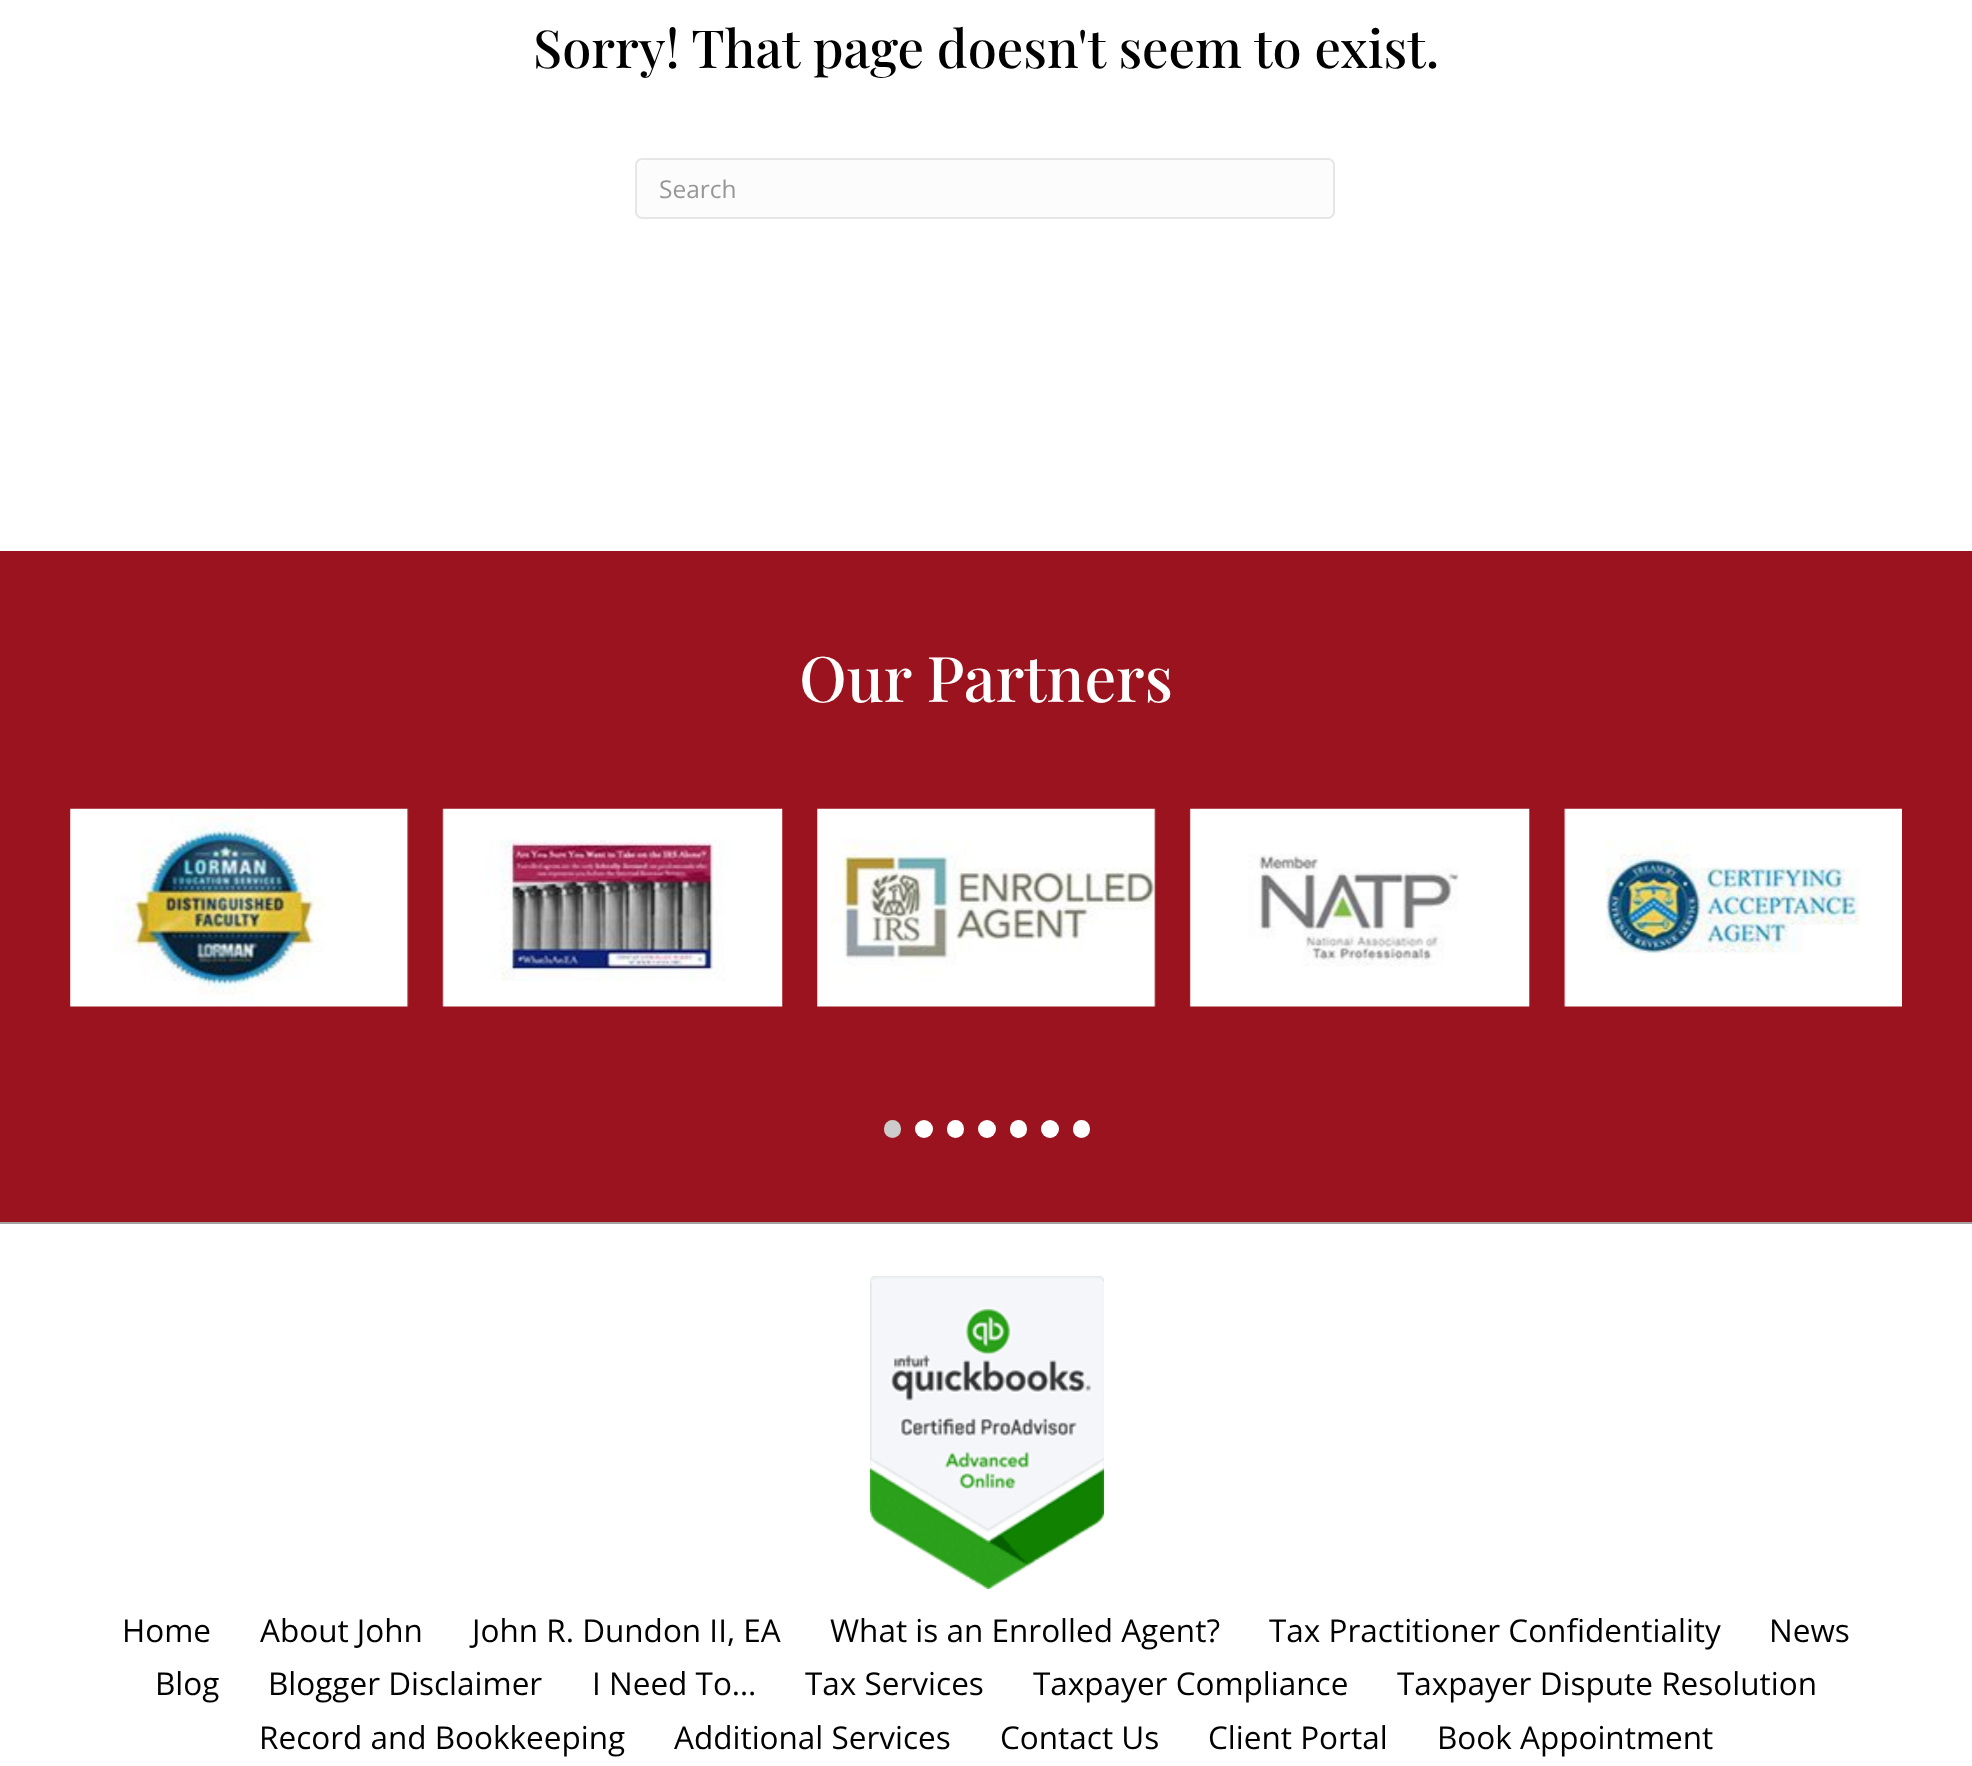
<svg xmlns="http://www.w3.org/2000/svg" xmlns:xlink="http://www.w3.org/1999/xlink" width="1972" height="1766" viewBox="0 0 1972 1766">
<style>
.cls-1{font:500 52.5px Playfair Display;fill:#000000}
.cls-2{font:24.5px Open Sans;fill:#979797}
.cls-3{font:500 63px Playfair Display;fill:#ffffff}
.cls-4{font:31.5px Open Sans;fill:#000000}
</style>
<rect width="100%" height="100%" fill="#ffffff"/>
<rect fill="#fcfcfc" stroke="#e6e6e6" stroke-width="2" x="636" y="159" width="698" height="59" rx="6"/>
<rect fill="#9b131e" x="0" y="551" width="1972" height="671"/>
<image xlink:href="image0.png" x="70" y="808" width="339" height="199"/>
<image xlink:href="image1.png" x="442" y="808" width="341" height="199"/>
<image xlink:href="image2.png" x="817" y="808" width="339" height="199"/>
<image xlink:href="image3.png" x="1189" y="808" width="341" height="199"/>
<image xlink:href="image4.png" x="1564" y="808" width="338" height="199"/>
<rect fill="#cccccc" x="884" y="1120" width="17" height="18" rx="8.5"/>
<circle fill="#ffffff" cx="924" cy="1129" r="9"/>
<rect fill="#ffffff" x="947" y="1120" width="17" height="18" rx="8.5"/>
<circle fill="#ffffff" cx="987" cy="1129" r="9"/>
<rect fill="#ffffff" x="1010" y="1120" width="17" height="18" rx="8.5"/>
<circle fill="#ffffff" cx="1050" cy="1129" r="9"/>
<rect fill="#ffffff" x="1073" y="1120" width="17" height="18" rx="8.5"/>
<rect fill="#a3a3a3" x="0" y="1222" width="1972" height="2"/>
<image xlink:href="image5.png" x="869" y="1276" width="236" height="314"/>
<text class="cls-1" x="533" y="68">Sorry! That page doesn't seem to exist.</text>
<text class="cls-2" x="659" y="198">Search</text>
<text class="cls-3" x="799" y="702">Our Partners</text>
<text class="cls-4" x="122" y="1642">Home</text>
<text class="cls-4" x="260" y="1642">About John</text>
<text class="cls-4" x="472" y="1642">John R. Dundon II, EA</text>
<text class="cls-4" x="830" y="1642">What is an Enrolled Agent?</text>
<text class="cls-4" x="1269" y="1642">Tax Practitioner Confidentiality</text>
<text class="cls-4" x="1769" y="1642">News</text>
<text class="cls-4" x="155" y="1695">Blog</text>
<text class="cls-4" x="268" y="1695">Blogger Disclaimer</text>
<text class="cls-4" x="592" y="1695">I Need To…</text>
<text class="cls-4" x="805" y="1695">Tax Services</text>
<text class="cls-4" x="1033" y="1695">Taxpayer Compliance</text>
<text class="cls-4" x="1397" y="1695">Taxpayer Dispute Resolution</text>
<text class="cls-4" x="259" y="1749">Record and Bookkeeping</text>
<text class="cls-4" x="674" y="1749">Additional Services</text>
<text class="cls-4" x="1000" y="1749">Contact Us</text>
<text class="cls-4" x="1208" y="1749">Client Portal</text>
<text class="cls-4" x="1437" y="1749">Book Appointment</text>
</svg>
